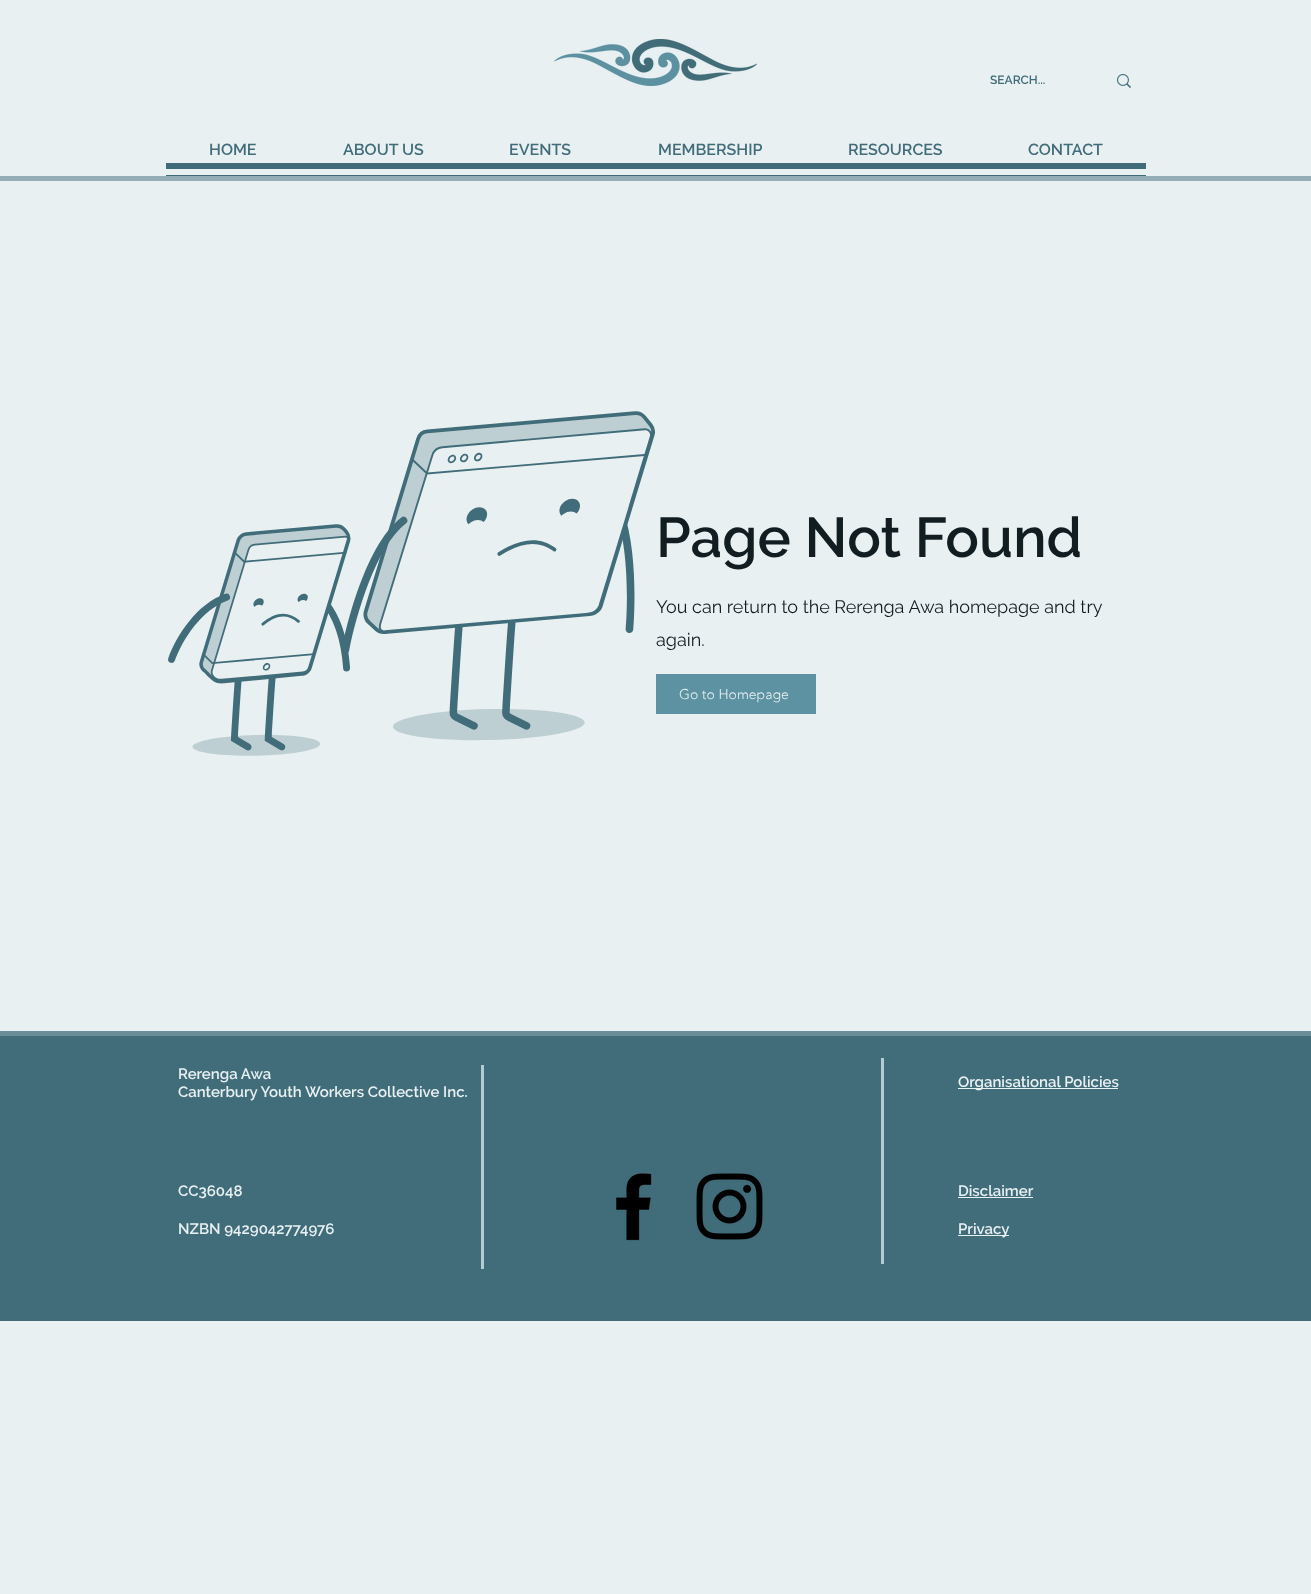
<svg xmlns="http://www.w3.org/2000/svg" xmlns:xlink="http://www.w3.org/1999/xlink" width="1311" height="1594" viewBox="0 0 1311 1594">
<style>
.cls-1{font:600 12px Raleway;fill:#416c79}
.cls-2{font:600 16px Raleway;fill:#416c79}
.cls-3{font:600 56px Raleway;fill:#121d21}
.cls-4{font:18px Raleway;fill:#121d21}
.cls-5{font:300 14px 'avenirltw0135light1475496';fill:#e8f0f2}
.cls-6{font:600 15px Raleway;fill:#e8f0f2}
</style>
<rect width="100%" height="100%" fill="#e8f0f2"/>
<image xlink:href="image0.png" x="554" y="39" width="203" height="47"/>
<image xlink:href="image1.png" x="1117" y="74" width="14" height="14"/>
<rect fill="#416b78" x="166" y="163" width="980" height="6"/>
<rect fill="#416b78" x="166" y="175" width="980" height="1"/>
<rect fill="#95aeb6" x="0" y="176" width="1311" height="5"/>
<image xlink:href="image2.png" x="168" y="411" width="487" height="345"/>
<rect fill="#5c92a1" x="656" y="674" width="160" height="40"/>
<rect fill="#416c79" x="0" y="1036" width="1311" height="285"/>
<rect fill="#6b8d97" x="0" y="1031" width="1311" height="5"/>
<rect fill="#b2ccd3" x="481" y="1065" width="3" height="204"/>
<rect fill="#b2ccd3" x="881" y="1058" width="3" height="206"/>
<rect fill="#e8f0f2" x="958" y="1088" width="160" height="1"/>
<image xlink:href="image3.png" x="616" y="1173" width="36" height="68"/>
<image xlink:href="image4.png" x="696" y="1173" width="67" height="67"/>
<rect fill="#e8f0f2" x="958" y="1197" width="75" height="1"/>
<rect fill="#e8f0f2" x="958" y="1235" width="51" height="1"/>
<text class="cls-1" x="990" y="84">SEARCH...</text>
<text class="cls-2" x="209" y="155">HOME</text>
<text class="cls-2" x="343" y="155">ABOUT US</text>
<text class="cls-2" x="509" y="155">EVENTS</text>
<text class="cls-2" x="658" y="155">MEMBERSHIP</text>
<text class="cls-2" x="848" y="155">RESOURCES</text>
<text class="cls-2" x="1028" y="155">CONTACT</text>
<text class="cls-3" x="656" y="557">Page Not Found</text>
<text class="cls-4"><tspan x="656" y="613">You can return to the Rerenga Awa homepage and try</tspan><tspan x="656" y="646">again.</tspan></text>
<text class="cls-5" x="679" y="699">Go to Homepage</text>
<text class="cls-6"><tspan x="178" y="1079">Rerenga Awa</tspan><tspan x="178" y="1097">Canterbury Youth Workers Collective Inc.</tspan></text>
<text class="cls-6" x="958" y="1087">Organisational Policies</text>
<text class="cls-6" x="178" y="1196">CC36048</text>
<text class="cls-6" x="958" y="1196">Disclaimer</text>
<text class="cls-6" x="178" y="1234">NZBN 9429042774976</text>
<text class="cls-6" x="958" y="1234">Privacy</text>
</svg>
